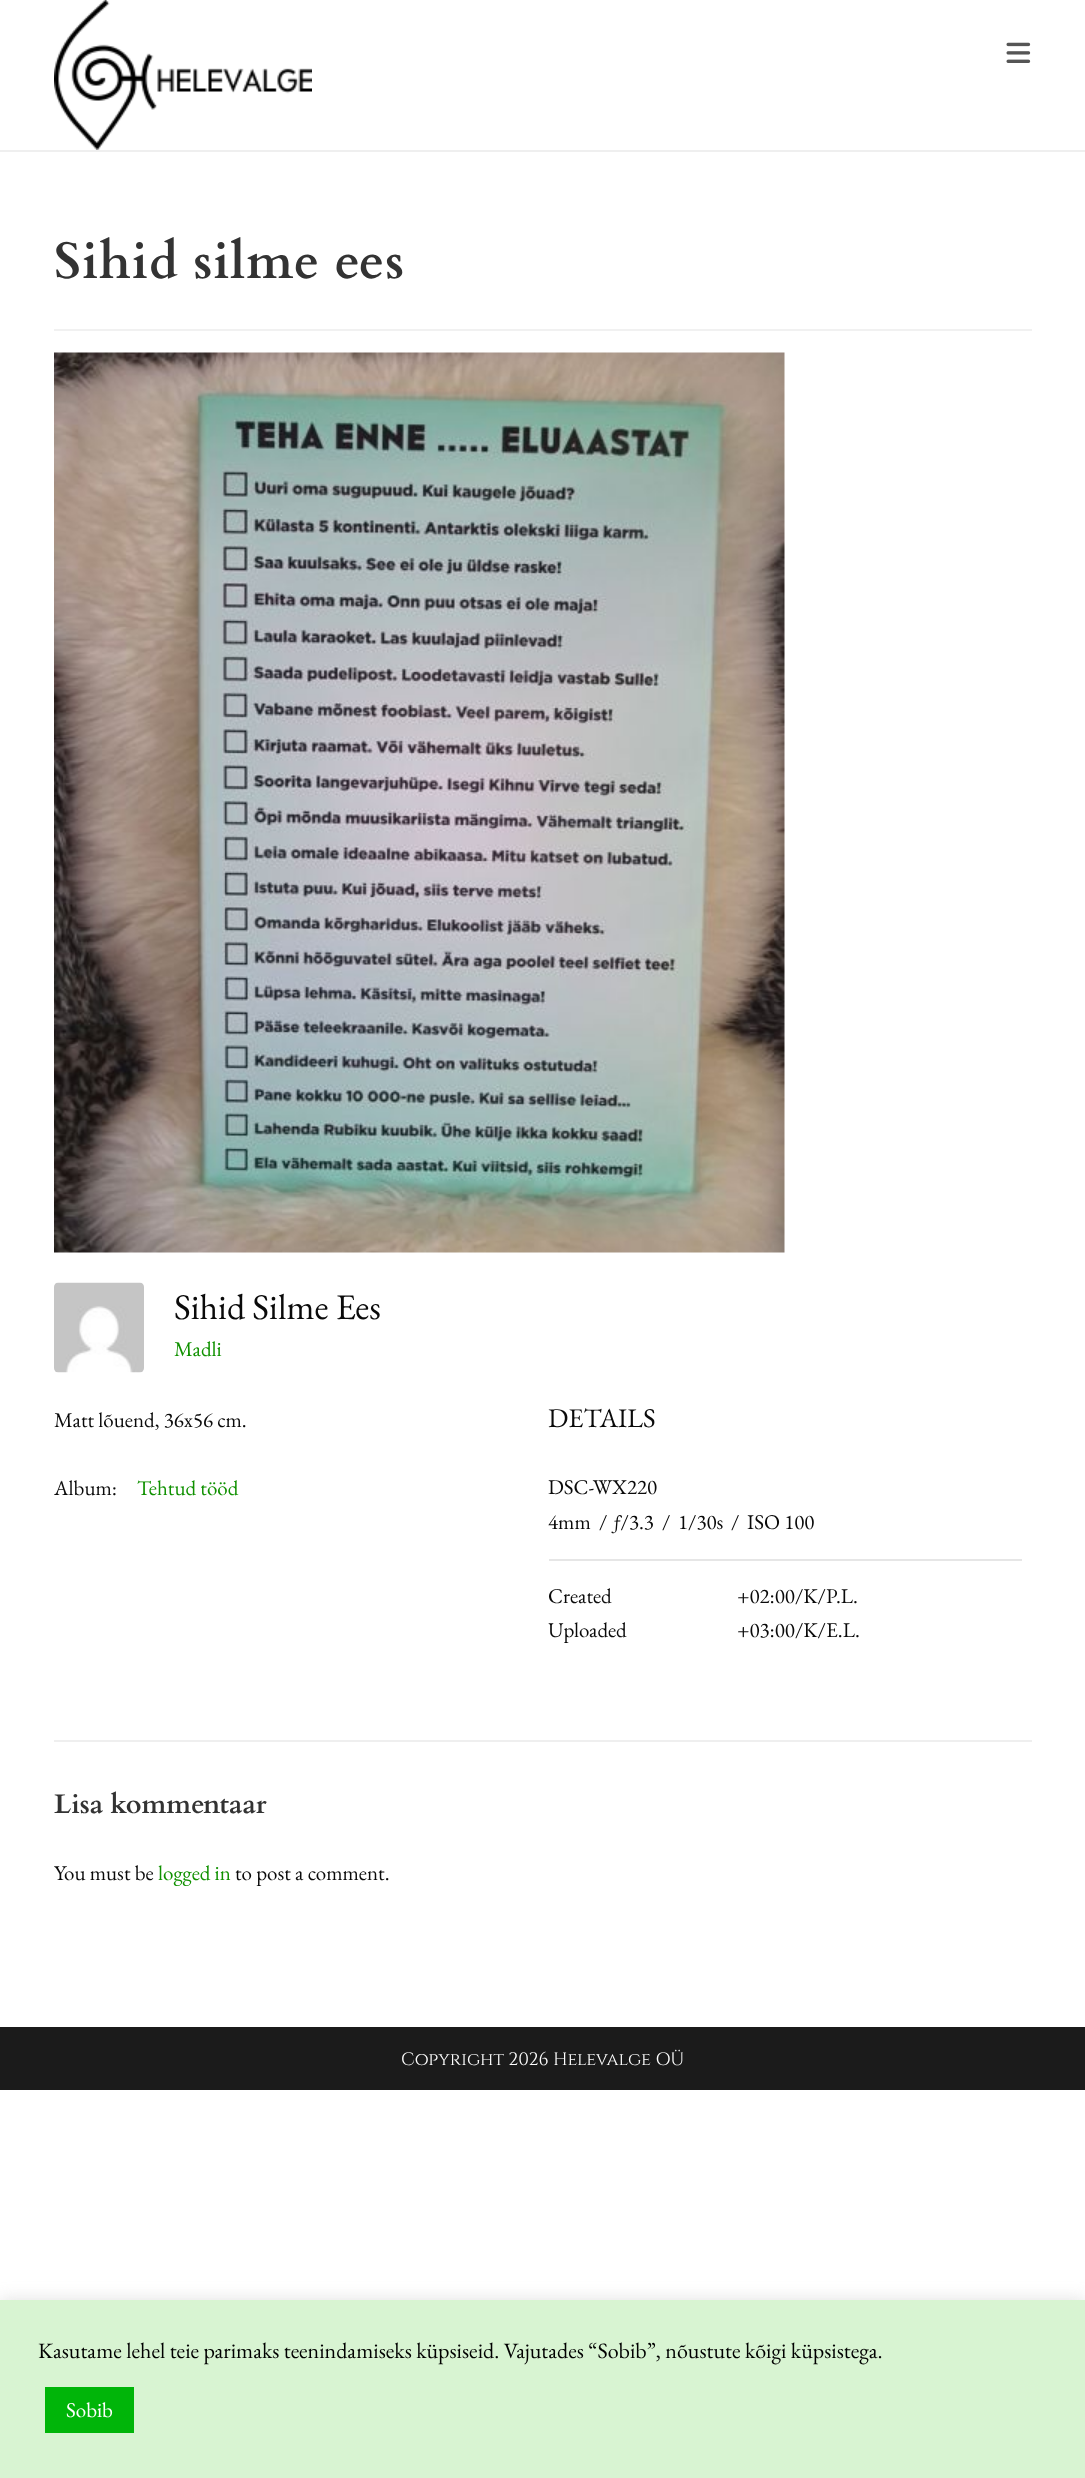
<svg xmlns="http://www.w3.org/2000/svg" xmlns:xlink="http://www.w3.org/1999/xlink" width="1085" height="2478" viewBox="0 0 1085 2478">
<style>
.cls-1{font:bold 51px Cardo;letter-spacing:0.9px;fill:#333333}
.cls-2{font:36px EB Garamond;fill:#0a0a0a}
.cls-3{font:21px EB Garamond;fill:#109100}
.cls-4{font:21px EB Garamond;fill:#0a0a0a}
.cls-5{font:27px EB Garamond;fill:#0a0a0a}
.cls-6{font:bold 27px Cardo;fill:#333333}
.cls-7{font:18px Cinzel;fill:#ffffff}
.cls-8{font:22px EB Garamond;fill:#000000}
.cls-9{font:21px EB Garamond;fill:#ffffff}
</style>
<rect width="100%" height="100%" fill="#ffffff"/>
<rect fill="#efefef" x="0" y="150" width="1085" height="2"/>
<image xlink:href="image0.png" x="54" y="0" width="258" height="150"/>
<image xlink:href="image1.png" x="1006" y="42" width="25" height="21"/>
<rect fill="#f1f1f1" x="54" y="329" width="978" height="2"/>
<image xlink:href="image2.png" x="54" y="352" width="731" height="901"/>
<image xlink:href="image3.png" x="54" y="1282" width="90" height="91"/>
<rect fill="#e6e6e6" x="549" y="1559" width="473" height="2"/>
<rect fill="#efefef" x="54" y="1740" width="978" height="2"/>
<rect fill="#1b1b1b" x="0" y="2027" width="1085" height="63"/>
<rect fill="#acabab" fill-opacity="0.3" filter="blur(7.5px)" x="0" y="2298" width="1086" height="179"/>
<rect fill="#d8f4d2" x="0" y="2300" width="1085" height="178"/>
<rect fill="#00b509" x="45" y="2387" width="89" height="46"/>
<text class="cls-1" x="54" y="278">Sihid silme ees</text>
<text class="cls-2" x="174" y="1319">Sihid Silme Ees</text>
<text class="cls-3" x="174" y="1356">Madli</text>
<text class="cls-4" x="54" y="1427">Matt lõuend, 36x56 cm.</text>
<text class="cls-4" x="54" y="1495">Album:</text>
<text class="cls-3" x="137" y="1495">Tehtud tööd</text>
<text class="cls-5" x="548" y="1427">DETAILS</text>
<text class="cls-4"><tspan x="548" y="1494">DSC-WX220</tspan><tspan x="548" y="1529">4mm</tspan></text>
<text class="cls-4" x="599" y="1529">/</text>
<text class="cls-4" x="614" y="1529">ƒ/3.3</text>
<text class="cls-4" x="662" y="1529">/</text>
<text class="cls-4" x="678" y="1529">1/30s</text>
<text class="cls-4" x="731" y="1529">/</text>
<text class="cls-4" x="747" y="1529">ISO 100</text>
<text class="cls-4" x="548" y="1603">Created</text>
<text class="cls-4" x="737" y="1603">+02:00/K/P.L.</text>
<text class="cls-4" x="548" y="1637">Uploaded</text>
<text class="cls-4" x="737" y="1637">+03:00/K/E.L.</text>
<text class="cls-6" x="54" y="1813">Lisa kommentaar</text>
<text class="cls-4" x="54" y="1880">You must be</text>
<text class="cls-3" x="158" y="1880">logged in</text>
<text class="cls-4" x="235" y="1880">to post a comment.</text>
<text class="cls-7" x="401" y="2065">Copyright 2026 Helevalge OÜ</text>
<text class="cls-8" x="38" y="2358">Kasutame lehel teie parimaks teenindamiseks küpsiseid. Vajutades “Sobib”, nõustute kõigi küpsistega.</text>
<text class="cls-9" x="66" y="2417">Sobib</text>
</svg>
